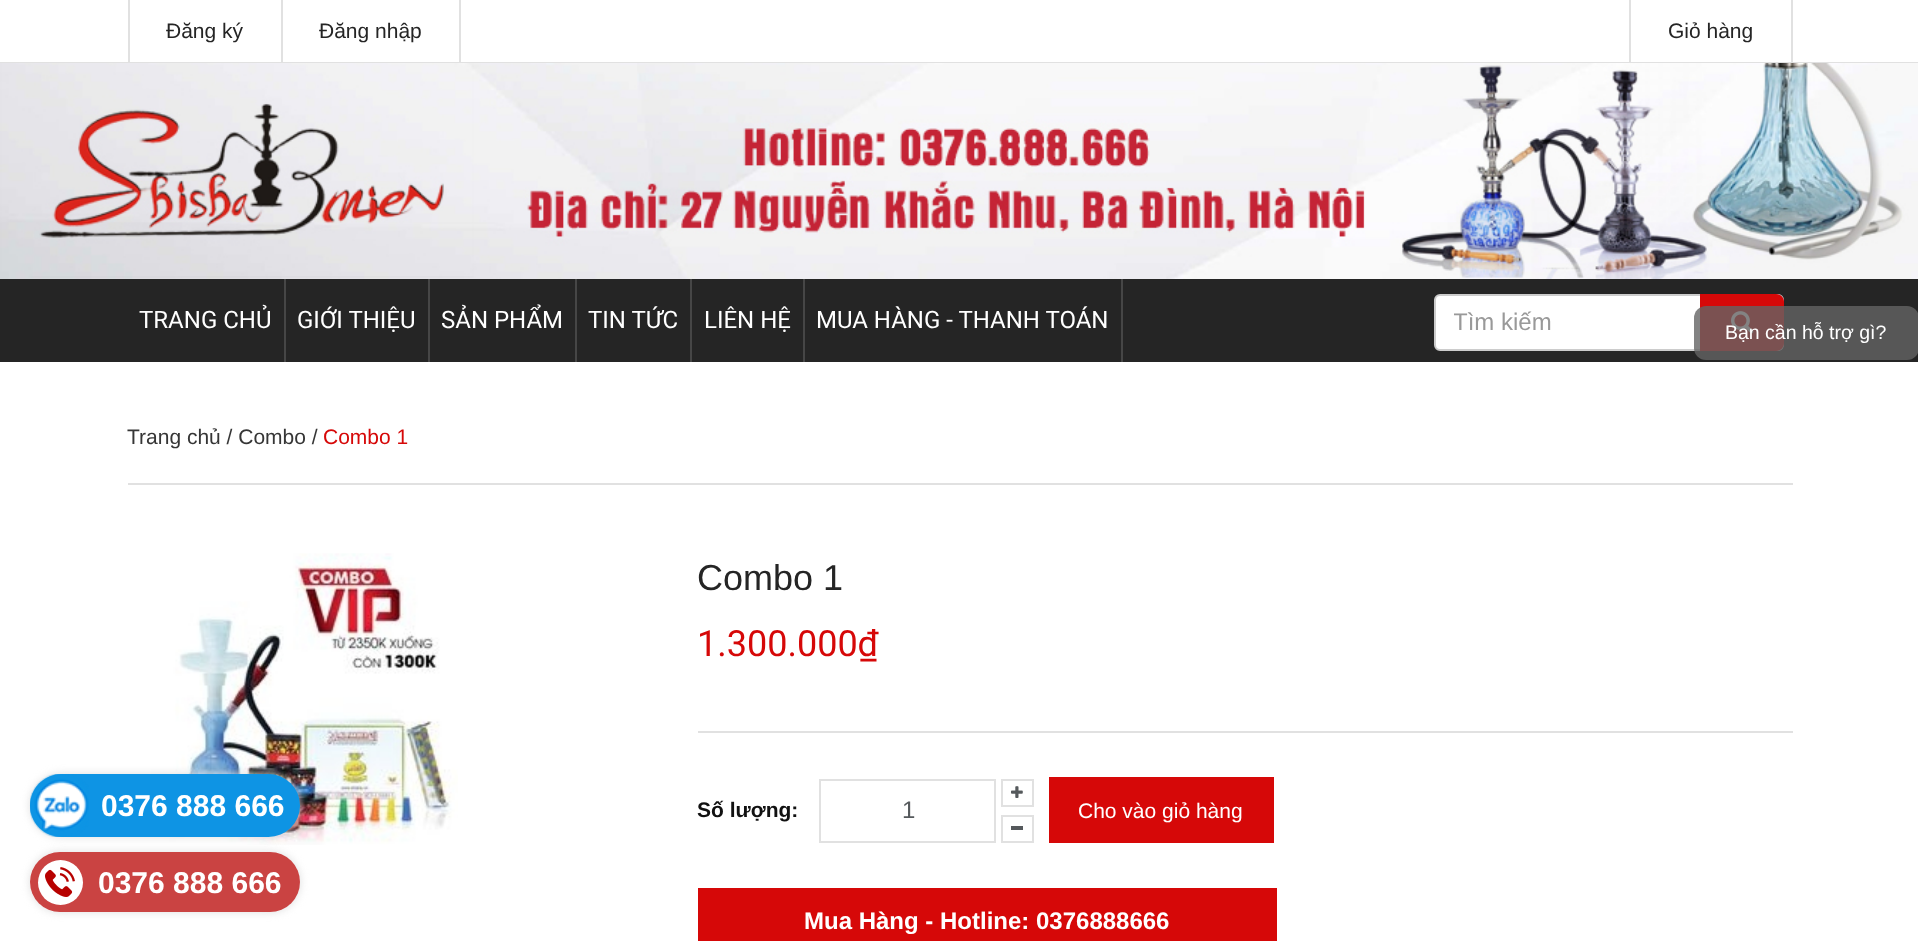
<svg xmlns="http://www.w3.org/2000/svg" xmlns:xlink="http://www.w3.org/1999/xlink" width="1918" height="941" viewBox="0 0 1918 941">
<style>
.cls-1{font:21px Liberation Sans;fill:#252525}
.cls-2{font:24px Roboto;fill:#ffffff}
.cls-3{font:24px Liberation Sans;fill:#999999}
.cls-4{font:19.5px Liberation Sans;fill:#ffffff}
.cls-5{font:21px Liberation Sans;fill:#363636}
.cls-6{font:21px Liberation Sans;fill:#d60808}
.cls-7{font:bold 30px Liberation Sans;fill:#ffffff}
.cls-8{font:36px Liberation Sans;fill:#252525}
.cls-9{font:36px Roboto;fill:#d60808}
.cls-10{font:bold 21px Liberation Sans;fill:#111111}
.cls-11{font:24px Liberation Sans;fill:#55595c}
.cls-12{font:21px Liberation Sans;fill:#ffffff}
.cls-13{font:bold 24px Liberation Sans;fill:#ffffff}
</style>
<defs>
<clipPath id="clip1"><path d="M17 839H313V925H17ZM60 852H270C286.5 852 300 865.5 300 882C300 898.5 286.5 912 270 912H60C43.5 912 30 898.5 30 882C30 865.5 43.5 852 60 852Z" clip-rule="evenodd"/></clipPath>
<clipPath id="clip2"><rect x="1454" y="309" width="310" height="27"/></clipPath>
</defs>
<rect width="100%" height="100%" fill="#ffffff"/>
<rect fill="#e1e1e1" x="0" y="62" width="1918" height="1"/>
<rect fill="#e1e1e1" x="459" y="0" width="2" height="62"/>
<rect fill="#e1e1e1" x="128" y="0" width="2" height="62"/>
<rect fill="#e1e1e1" x="281" y="0" width="2" height="62"/>
<rect fill="#e1e1e1" x="1791" y="0" width="2" height="62"/>
<rect fill="#e1e1e1" x="1629" y="0" width="2" height="62"/>
<image xlink:href="image0.png" x="0" y="63" width="1918" height="216"/>
<rect fill="#252525" x="0" y="279" width="1918" height="83"/>
<rect fill="#464646" x="284" y="279" width="2" height="83"/>
<rect fill="#464646" x="428" y="279" width="2" height="83"/>
<rect fill="#464646" x="575" y="279" width="2" height="83"/>
<rect fill="#464646" x="690" y="279" width="2" height="83"/>
<rect fill="#464646" x="803" y="279" width="2" height="83"/>
<rect fill="#464646" x="1121" y="279" width="2" height="83"/>
<rect fill="#ffffff" stroke="#cccccc" stroke-width="2" x="1435" y="295" width="348" height="55" rx="5"/>
<path fill="#d60808" d="M1700 294H1776C1780.5 294 1784 297.5 1784 302V343C1784 347.5 1780.5 351 1776 351H1700Z"/>
<image xlink:href="image1.png" x="1731" y="311" width="23" height="23"/>
<rect fill="#646464" fill-opacity="0.8" x="1694" y="306" width="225" height="54" rx="12"/>
<rect fill="#e1e1e1" x="128" y="483" width="1665" height="2"/>
<image xlink:href="image3.png" x="151" y="553" width="307" height="292"/>
<rect fill="#dddddd" filter="blur(4px)" x="30" y="774" width="270" height="63" rx="31.5"/>
<rect fill="#0e94e4" x="30" y="774" width="270" height="63" rx="31.5"/>
<image xlink:href="image2.png" x="30" y="774" width="59" height="63"/>
<rect fill="#e1e1e1" x="698" y="731" width="1095" height="2"/>
<rect fill="none" stroke="#e1e1e1" stroke-width="2" x="1002" y="780" width="31" height="26"/>
<image xlink:href="image4.png" x="1011" y="786" width="12" height="12"/>
<rect fill="none" stroke="#e1e1e1" stroke-width="2" x="820" y="780" width="175" height="62"/>
<rect fill="none" stroke="#e1e1e1" stroke-width="2" x="1002" y="816" width="31" height="26"/>
<rect fill="#55595c" x="1011" y="826" width="12" height="4"/>
<rect fill="#d60808" x="1049" y="777" width="225" height="66"/>
<rect fill="#d60808" x="698" y="888" width="579" height="53"/>
<g clip-path="url(#clip1)">
<rect fill="#dddddd" filter="blur(4px)" x="30" y="852" width="270" height="60" rx="30"/>
</g>
<rect fill="#b70100" fill-opacity="0.74" x="30" y="852" width="270" height="60" rx="30"/>
<circle fill="#ffffff" cx="60.5" cy="882.5" r="22.5"/>
<image xlink:href="image5.png" x="45" y="867" width="30" height="30"/>
<text class="cls-1" x="166" y="38">Đăng ký</text>
<text class="cls-1" x="319" y="38">Đăng nhập</text>
<text class="cls-1" x="1668" y="38">Giỏ hàng</text>
<text class="cls-2" x="139" y="328">TRANG CHỦ</text>
<text class="cls-2" x="297" y="328">GIỚI THIỆU</text>
<text class="cls-2" x="441" y="328">SẢN PHẨM</text>
<text class="cls-2" x="588" y="328">TIN TỨC</text>
<text class="cls-2" x="704" y="328">LIÊN HỆ</text>
<text class="cls-2" x="816" y="328">MUA HÀNG - THANH TOÁN</text>
<g clip-path="url(#clip2)">
<text class="cls-3" x="1453" y="330">Tìm kiếm</text>
</g>
<text class="cls-4" x="1725" y="339">Bạn cần hỗ trợ gì?</text>
<text class="cls-5" x="127" y="444">Trang chủ / Combo /</text>
<text class="cls-6" x="323" y="444">Combo 1</text>
<text class="cls-7" x="101" y="816">0376 888 666</text>
<text class="cls-8" x="697" y="590">Combo 1</text>
<text class="cls-9" x="697" y="656">1.300.000₫</text>
<text class="cls-10" x="697" y="817">Số lượng:</text>
<text class="cls-11" x="902" y="818">1</text>
<text class="cls-12" x="1078" y="818">Cho vào giỏ hàng</text>
<text class="cls-13" x="804" y="929">Mua Hàng - Hotline: 0376888666</text>
<text class="cls-7" x="98" y="893">0376 888 666</text>
</svg>
